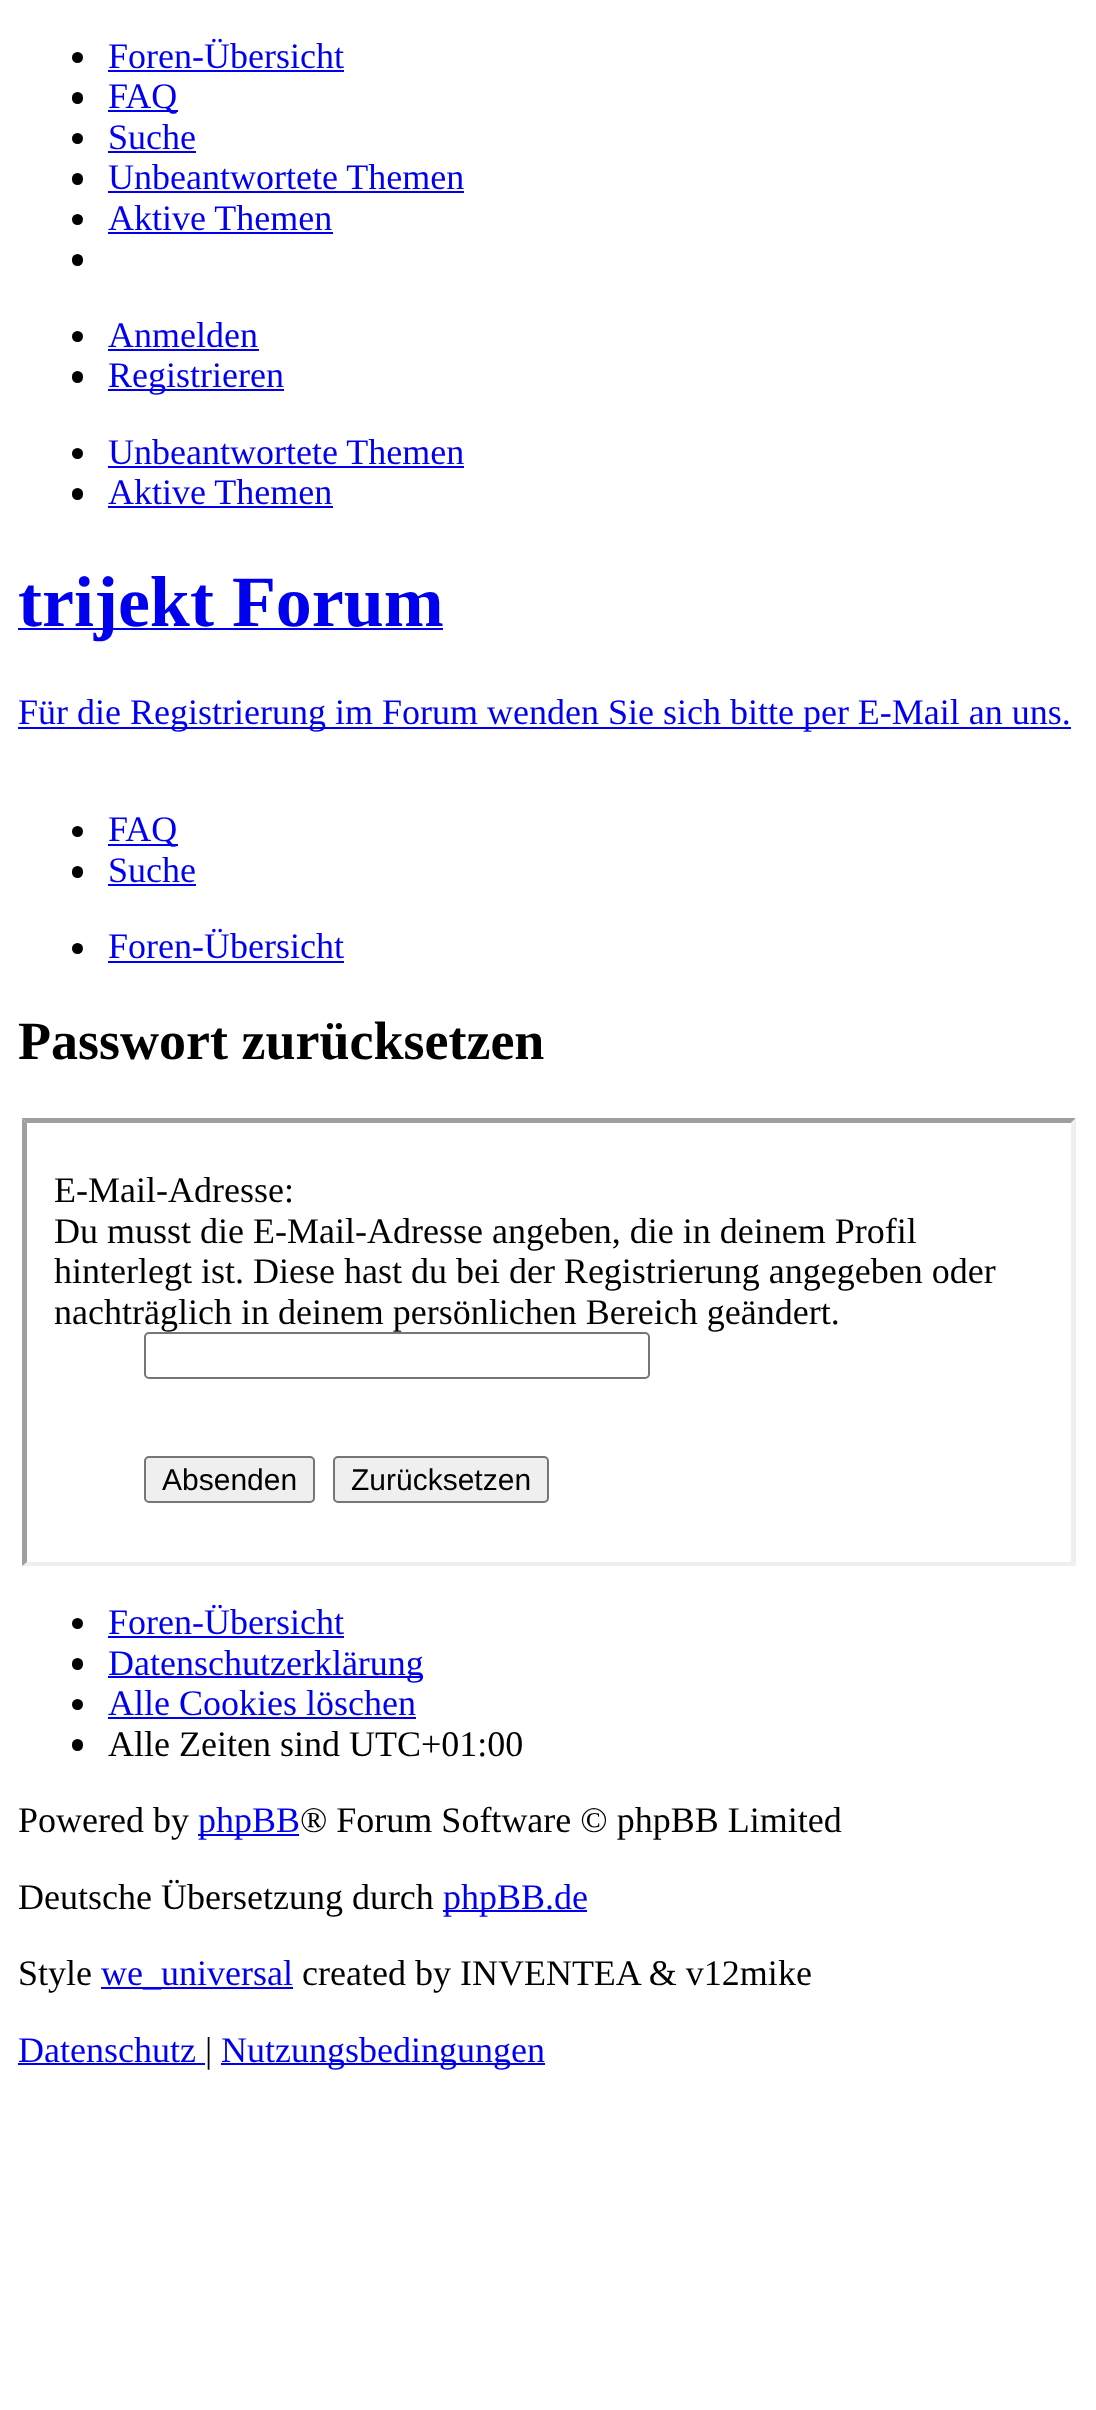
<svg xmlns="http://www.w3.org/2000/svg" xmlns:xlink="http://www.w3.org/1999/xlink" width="1096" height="2410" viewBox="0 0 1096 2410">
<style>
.cls-1{font:36px Liberation Serif;fill:#0000ee}
.cls-2{font:bold 72px Liberation Serif;fill:#0000ee}
.cls-3{font:bold 54px Liberation Serif;fill:#000000}
.cls-4{font:36px Liberation Serif;fill:#000000}
.cls-5{font:30px Liberation Sans;fill:#000000}
</style>
<rect width="100%" height="100%" fill="#ffffff"/>
<circle fill="#000000" cx="77.5" cy="57.5" r="5.5"/>
<rect fill="#0000ee" x="108" y="70" width="236" height="2"/>
<rect fill="#000000" x="72" y="92" width="11" height="12" rx="5.5"/>
<rect fill="#0000ee" x="108" y="110" width="70" height="2"/>
<circle fill="#000000" cx="77.5" cy="138.5" r="5.5"/>
<rect fill="#0000ee" x="108" y="151" width="88" height="2"/>
<rect fill="#000000" x="72" y="173" width="11" height="12" rx="5.5"/>
<rect fill="#0000ee" x="108" y="191" width="356" height="2"/>
<circle fill="#000000" cx="77.5" cy="219.5" r="5.5"/>
<rect fill="#0000ee" x="108" y="232" width="225" height="2"/>
<rect fill="#000000" x="72" y="254" width="11" height="12" rx="5.5"/>
<circle fill="#000000" cx="77.5" cy="336.5" r="5.5"/>
<rect fill="#0000ee" x="108" y="349" width="151" height="2"/>
<rect fill="#000000" x="72" y="371" width="11" height="12" rx="5.5"/>
<rect fill="#0000ee" x="108" y="389" width="176" height="2"/>
<circle fill="#000000" cx="77.5" cy="453.5" r="5.5"/>
<rect fill="#0000ee" x="108" y="466" width="356" height="2"/>
<rect fill="#000000" x="72" y="488" width="11" height="12" rx="5.5"/>
<rect fill="#0000ee" x="108" y="506" width="225" height="2"/>
<rect fill="#0000ee" x="18" y="628" width="425" height="2"/>
<rect fill="#0000ee" x="18" y="727" width="1053" height="2"/>
<circle fill="#000000" cx="77.5" cy="831.5" r="5.5"/>
<rect fill="#0000ee" x="108" y="844" width="70" height="2"/>
<rect fill="#000000" x="72" y="866" width="11" height="12" rx="5.5"/>
<rect fill="#0000ee" x="108" y="884" width="88" height="2"/>
<circle fill="#000000" cx="77.5" cy="948.5" r="5.5"/>
<rect fill="#0000ee" x="108" y="961" width="236" height="2"/>
<path fill="#9f9f9f" d="M22 1118H1076L1071 1123H27Z"/>
<path fill="#efefef" d="M1076 1118V1566L1071 1562V1123Z"/>
<path fill="#efefef" d="M1076 1566H22L27 1562H1071Z"/>
<path fill="#9f9f9f" d="M22 1566V1118L27 1123V1562Z"/>
<rect fill="none" stroke="#767676" stroke-width="2" x="145" y="1333" width="504" height="45" rx="4"/>
<rect fill="#efefef" stroke="#767676" stroke-width="2" x="145" y="1457" width="169" height="45" rx="4"/>
<rect fill="#efefef" stroke="#767676" stroke-width="2" x="334" y="1457" width="214" height="45" rx="4"/>
<circle fill="#000000" cx="77.5" cy="1623.5" r="5.5"/>
<rect fill="#0000ee" x="108" y="1636" width="236" height="2"/>
<rect fill="#000000" x="72" y="1658" width="11" height="12" rx="5.5"/>
<rect fill="#0000ee" x="108" y="1676" width="315" height="2"/>
<circle fill="#000000" cx="77.5" cy="1704.5" r="5.5"/>
<rect fill="#0000ee" x="108" y="1717" width="308" height="2"/>
<rect fill="#000000" x="72" y="1739" width="11" height="12" rx="5.5"/>
<rect fill="#0000ee" x="198" y="1834" width="101" height="2"/>
<rect fill="#0000ee" x="443" y="1910" width="144" height="2"/>
<rect fill="#0000ee" x="101" y="1987" width="192" height="2"/>
<rect fill="#0000ee" x="18" y="2063" width="187" height="2"/>
<rect fill="#0000ee" x="221" y="2063" width="324" height="2"/>
<text class="cls-1"><tspan x="108" y="68">Foren-Übersicht</tspan><tspan x="108" y="108">FAQ</tspan><tspan x="108" y="149">Suche</tspan><tspan x="108" y="189">Unbeantwortete Themen</tspan><tspan x="108" y="230">Aktive Themen</tspan></text>
<text class="cls-1"><tspan x="108" y="347">Anmelden</tspan><tspan x="108" y="387">Registrieren</tspan></text>
<text class="cls-1"><tspan x="108" y="464">Unbeantwortete Themen</tspan><tspan x="108" y="504">Aktive Themen</tspan></text>
<text class="cls-2" x="18" y="626">trijekt Forum</text>
<text class="cls-1" x="18" y="724">Für die Registrierung im Forum wenden Sie sich bitte per E-Mail an uns.</text>
<text class="cls-1"><tspan x="108" y="841">FAQ</tspan><tspan x="108" y="882">Suche</tspan></text>
<text class="cls-1" x="108" y="958">Foren-Übersicht</text>
<text class="cls-3" x="18" y="1059">Passwort zurücksetzen</text>
<text class="cls-4"><tspan x="54" y="1202">E-Mail-Adresse:</tspan><tspan x="54" y="1243">Du musst die E-Mail-Adresse angeben, die in deinem Profil</tspan><tspan x="54" y="1283">hinterlegt ist. Diese hast du bei der Registrierung angegeben oder</tspan><tspan x="54" y="1324">nachträglich in deinem persönlichen Bereich geändert.</tspan></text>
<text class="cls-5" x="162" y="1490">Absenden</text>
<text class="cls-5" x="351" y="1490">Zurücksetzen</text>
<text class="cls-1"><tspan x="108" y="1634">Foren-Übersicht</tspan><tspan x="108" y="1675">Datenschutzerklärung</tspan><tspan x="108" y="1715">Alle Cookies löschen</tspan></text>
<text class="cls-4" x="108" y="1756">Alle Zeiten sind UTC+01:00</text>
<text class="cls-4" x="18" y="1832">Powered by</text>
<text class="cls-1" x="198" y="1832">phpBB</text>
<text class="cls-4" x="300" y="1832">® Forum Software © phpBB Limited</text>
<text class="cls-4" x="18" y="1909">Deutsche Übersetzung durch</text>
<text class="cls-1" x="443" y="1909">phpBB.de</text>
<text class="cls-4" x="18" y="1985">Style</text>
<text class="cls-1" x="101" y="1985">we_universal</text>
<text class="cls-4" x="302" y="1985">created by INVENTEA &amp; v12mike</text>
<text class="cls-1" x="18" y="2062">Datenschutz</text>
<text class="cls-4" x="205" y="2062">|</text>
<text class="cls-1" x="221" y="2062">Nutzungsbedingungen</text>
</svg>
